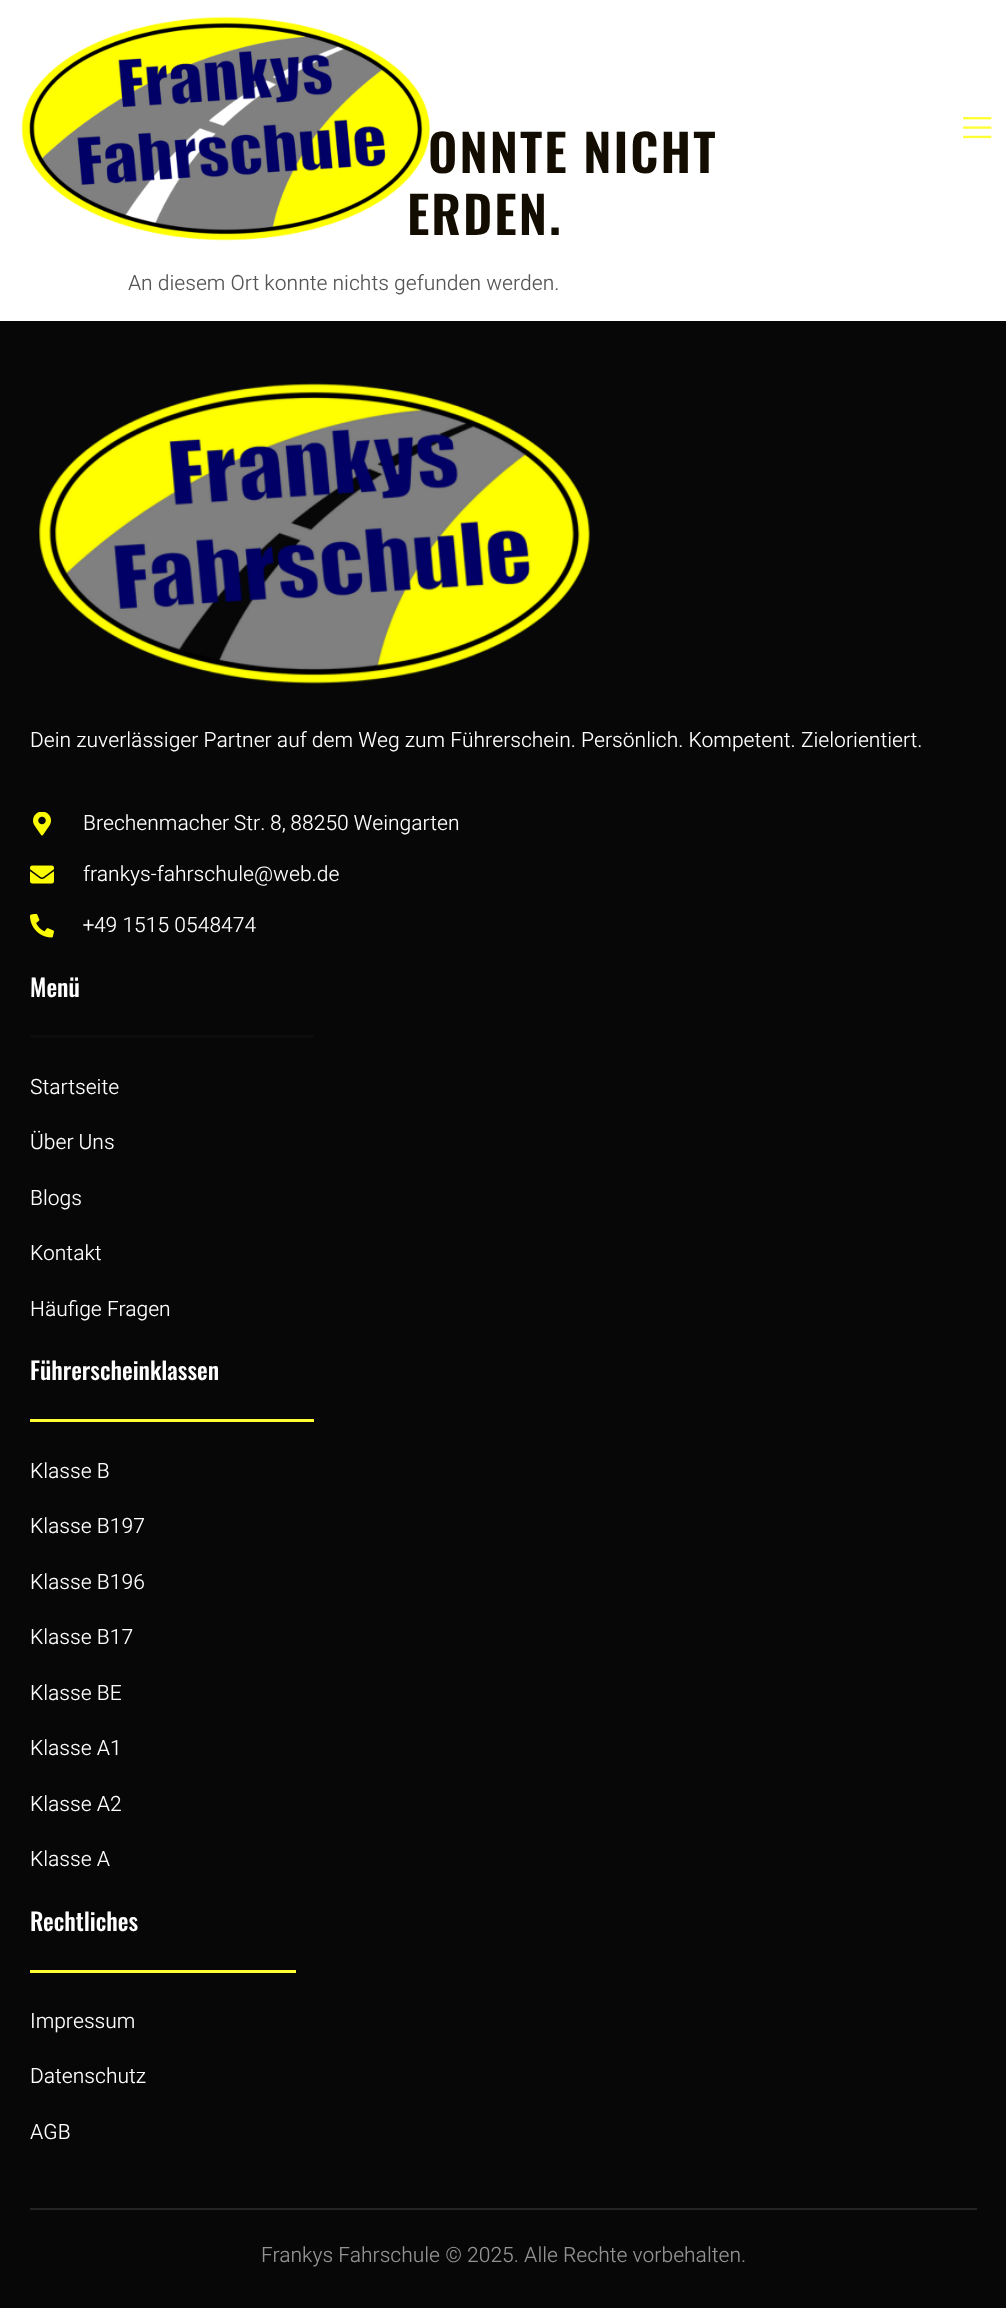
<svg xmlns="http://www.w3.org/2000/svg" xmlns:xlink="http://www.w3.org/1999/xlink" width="1006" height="2308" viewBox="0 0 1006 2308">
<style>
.cls-1{font:600 51px Oswald;letter-spacing:2px;fill:#130c00}
.cls-2{font:300 21px Heebo;fill:#555555}
.cls-3{font:300 21px Heebo;fill:#ffffff}
.cls-4{font:500 24px Oswald;fill:#ffffff}
.cls-5{font:300 21px Heebo;fill:#929292}
</style>
<rect width="100%" height="100%" fill="#ffffff"/>
<image xlink:href="image1.png" x="963" y="117" width="29" height="22"/>
<rect fill="#070707" x="0" y="321" width="1006" height="1987"/>
<image xlink:href="image2.png" x="39" y="383" width="551" height="301"/>
<image xlink:href="image3.png" x="33" y="812" width="18" height="24"/>
<image xlink:href="image4.png" x="30" y="865" width="24" height="19"/>
<image xlink:href="image5.png" x="30" y="914" width="24" height="24"/>
<rect fill="#0c0d0e" x="30" y="1035" width="284" height="3"/>
<rect fill="#ffff33" x="30" y="1419" width="284" height="3"/>
<rect fill="#ffff33" x="30" y="1970" width="266" height="3"/>
<rect fill="#242424" x="30" y="2208" width="947" height="2"/>
<text class="cls-1" x="428" y="173">ONNTE NICHT</text>
<text class="cls-1" x="407" y="235">ERDEN.</text>
<image xlink:href="image0.png" x="21" y="16" width="409" height="225"/>
<text class="cls-2" x="128" y="290">An diesem Ort konnte nichts gefunden werden.</text>
<text class="cls-3" x="30" y="747">Dein zuverlässiger Partner auf dem Weg zum Führerschein. Persönlich. Kompetent. Zielorientiert.</text>
<text class="cls-3" x="83" y="830" word-spacing="-0.5">Brechenmacher Str. 8, 88250 Weingarten</text>
<text class="cls-3" x="83" y="881">frankys-fahrschule@web.de</text>
<text class="cls-3" x="83" y="932">+49 1515 0548474</text>
<text class="cls-4" x="30" y="997">Menü</text>
<text class="cls-3" x="30" y="1094">Startseite</text>
<text class="cls-3" x="30" y="1149">Über Uns</text>
<text class="cls-3" x="30" y="1205">Blogs</text>
<text class="cls-3" x="30" y="1260">Kontakt</text>
<text class="cls-3" x="30" y="1316">Häufige Fragen</text>
<text class="cls-4" x="30" y="1380">Führerscheinklassen</text>
<text class="cls-3" x="30" y="1478">Klasse B</text>
<text class="cls-3" x="30" y="1533">Klasse B197</text>
<text class="cls-3" x="30" y="1589">Klasse B196</text>
<text class="cls-3" x="30" y="1644">Klasse B17</text>
<text class="cls-3" x="30" y="1700">Klasse BE</text>
<text class="cls-3" x="30" y="1755">Klasse A1</text>
<text class="cls-3" x="30" y="1811">Klasse A2</text>
<text class="cls-3" x="30" y="1866">Klasse A</text>
<text class="cls-4" x="30" y="1931">Rechtliches</text>
<text class="cls-3" x="30" y="2028">Impressum</text>
<text class="cls-3" x="30" y="2083">Datenschutz</text>
<text class="cls-3" x="30" y="2139">AGB</text>
<text class="cls-5" x="261" y="2262">Frankys Fahrschule © 2025. Alle Rechte vorbehalten.</text>
</svg>
